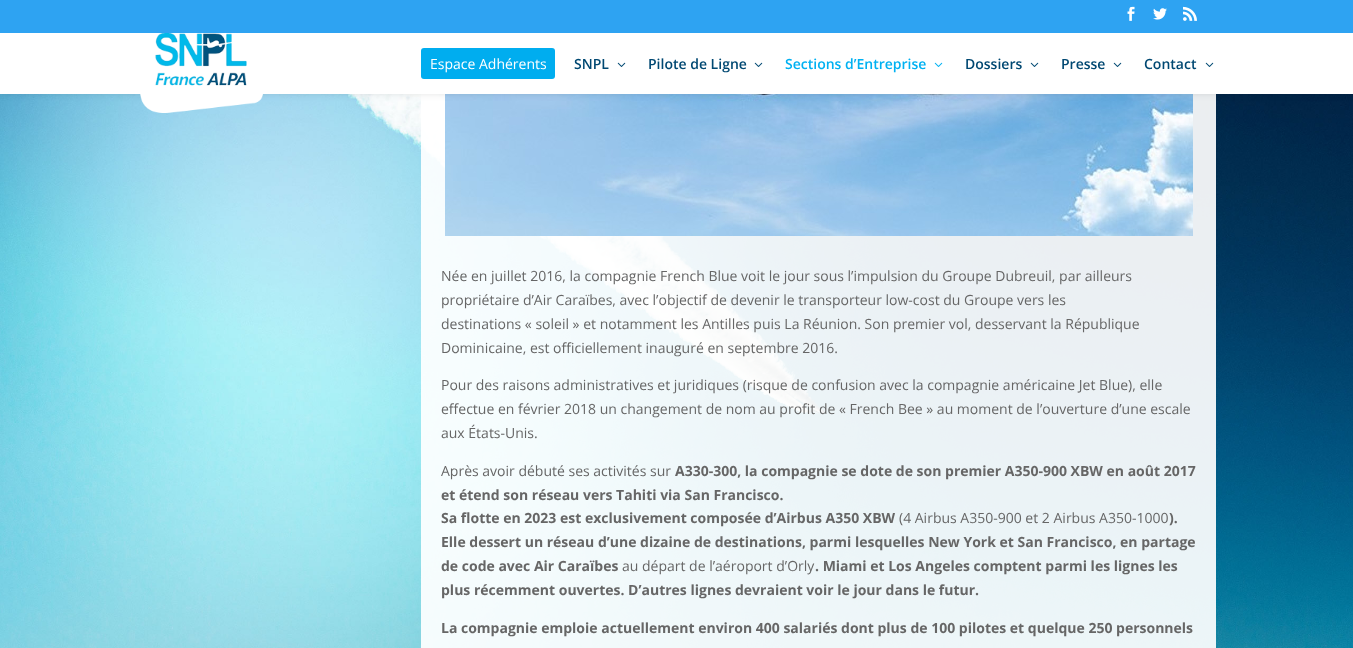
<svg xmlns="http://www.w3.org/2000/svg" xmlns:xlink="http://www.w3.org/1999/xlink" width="1353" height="648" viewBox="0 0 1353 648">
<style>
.cls-1{font:14px Open Sans;fill:#ffffff}
.cls-2{font:600 14px Open Sans;fill:#004872}
.cls-3{font:600 14px Open Sans;fill:#00b1f2}
.cls-4{font:14px Open Sans;fill:#666666}
.cls-5{font:bold 14px Open Sans;fill:#666666}
</style>
<rect width="100%" height="100%" fill="#ffffff"/>
<image xlink:href="image6.png" x="0" y="94" width="1353" height="554"/>
<rect fill="#ffffff" fill-opacity="0.92" x="421" y="94" width="795" height="554"/>
<image xlink:href="image7.png" x="445" y="94" width="748" height="142"/>
<rect fill="#000000" fill-opacity="0.1" filter="blur(3.5px)" x="0" y="33" width="1353" height="61"/>
<rect fill="#2ea3f2" x="0" y="0" width="1353" height="33"/>
<image xlink:href="image0.png" x="1127" y="6" width="8" height="15"/>
<image xlink:href="image1.png" x="1153" y="8" width="14" height="12"/>
<image xlink:href="image2.png" x="1183" y="6" width="14" height="15"/>
<rect fill="#ffffff" x="0" y="33" width="1353" height="61"/>
<image xlink:href="image3.png" x="140" y="33" width="123" height="80"/>
<rect fill="#00adef" x="421" y="48" width="134" height="31" rx="3"/>
<image xlink:href="image4.png" x="617" y="62" width="9" height="5"/>
<image xlink:href="image4.png" x="754" y="62" width="9" height="5"/>
<image xlink:href="image5.png" x="934" y="62" width="9" height="5"/>
<image xlink:href="image4.png" x="1030" y="62" width="9" height="5"/>
<image xlink:href="image4.png" x="1113" y="62" width="9" height="5"/>
<image xlink:href="image4.png" x="1205" y="62" width="9" height="5"/>
<text class="cls-1" x="430" y="69">Espace Adhérents</text>
<text class="cls-2" x="574" y="69">SNPL</text>
<text class="cls-2" x="648" y="69">Pilote de Ligne</text>
<text class="cls-3" x="785" y="69">Sections d’Entreprise</text>
<text class="cls-2" x="965" y="69">Dossiers</text>
<text class="cls-2" x="1061" y="69">Presse</text>
<text class="cls-2" x="1144" y="69">Contact</text>
<text class="cls-4"><tspan x="441" y="281">Née en juillet 2016, la compagnie French Blue voit le jour sous l’impulsion du Groupe Dubreuil, par ailleurs</tspan><tspan x="441" y="305">propriétaire d’Air Caraïbes, avec l’objectif de devenir le transporteur low-cost du Groupe vers les</tspan><tspan x="441" y="329">destinations « soleil » et notamment les Antilles puis La Réunion. Son premier vol, desservant la République</tspan><tspan x="441" y="353">Dominicaine, est officiellement inauguré en septembre 2016.</tspan></text>
<text class="cls-4"><tspan x="441" y="390">Pour des raisons administratives et juridiques (risque de confusion avec la compagnie américaine Jet Blue), elle</tspan><tspan x="441" y="414">effectue en février 2018 un changement de nom au profit de « French Bee » au moment de l’ouverture d’une escale</tspan><tspan x="441" y="438">aux États-Unis.</tspan></text>
<text class="cls-4" x="441" y="476">Après avoir débuté ses activités sur</text>
<text class="cls-5" x="675" y="476">A330-300, la compagnie se dote de son premier A350-900 XBW en août 2017</text>
<text class="cls-5"><tspan x="441" y="500">et étend son réseau vers Tahiti via San Francisco.</tspan><tspan x="441" y="523">Sa flotte en 2023 est exclusivement composée d’Airbus A350 XBW</tspan></text>
<text class="cls-4" x="899" y="523">(4 Airbus A350-900 et 2 Airbus A350-1000</text>
<text class="cls-5" x="1169" y="523">).</text>
<text class="cls-5"><tspan x="441" y="547">Elle dessert un réseau d’une dizaine de destinations, parmi lesquelles New York et San Francisco, en partage</tspan><tspan x="441" y="571">de code avec Air Caraïbes</tspan></text>
<text class="cls-4" x="622" y="571">au départ de l’aéroport d’Orly</text>
<text class="cls-5" x="815" y="571">. Miami et Los Angeles comptent parmi les lignes les</text>
<text class="cls-5" x="441" y="595">plus récemment ouvertes. D’autres lignes devraient voir le jour dans le futur.</text>
<text class="cls-5" x="441" y="633">La compagnie emploie actuellement environ 400 salariés dont plus de 100 pilotes et quelque 250 personnels</text>
</svg>
